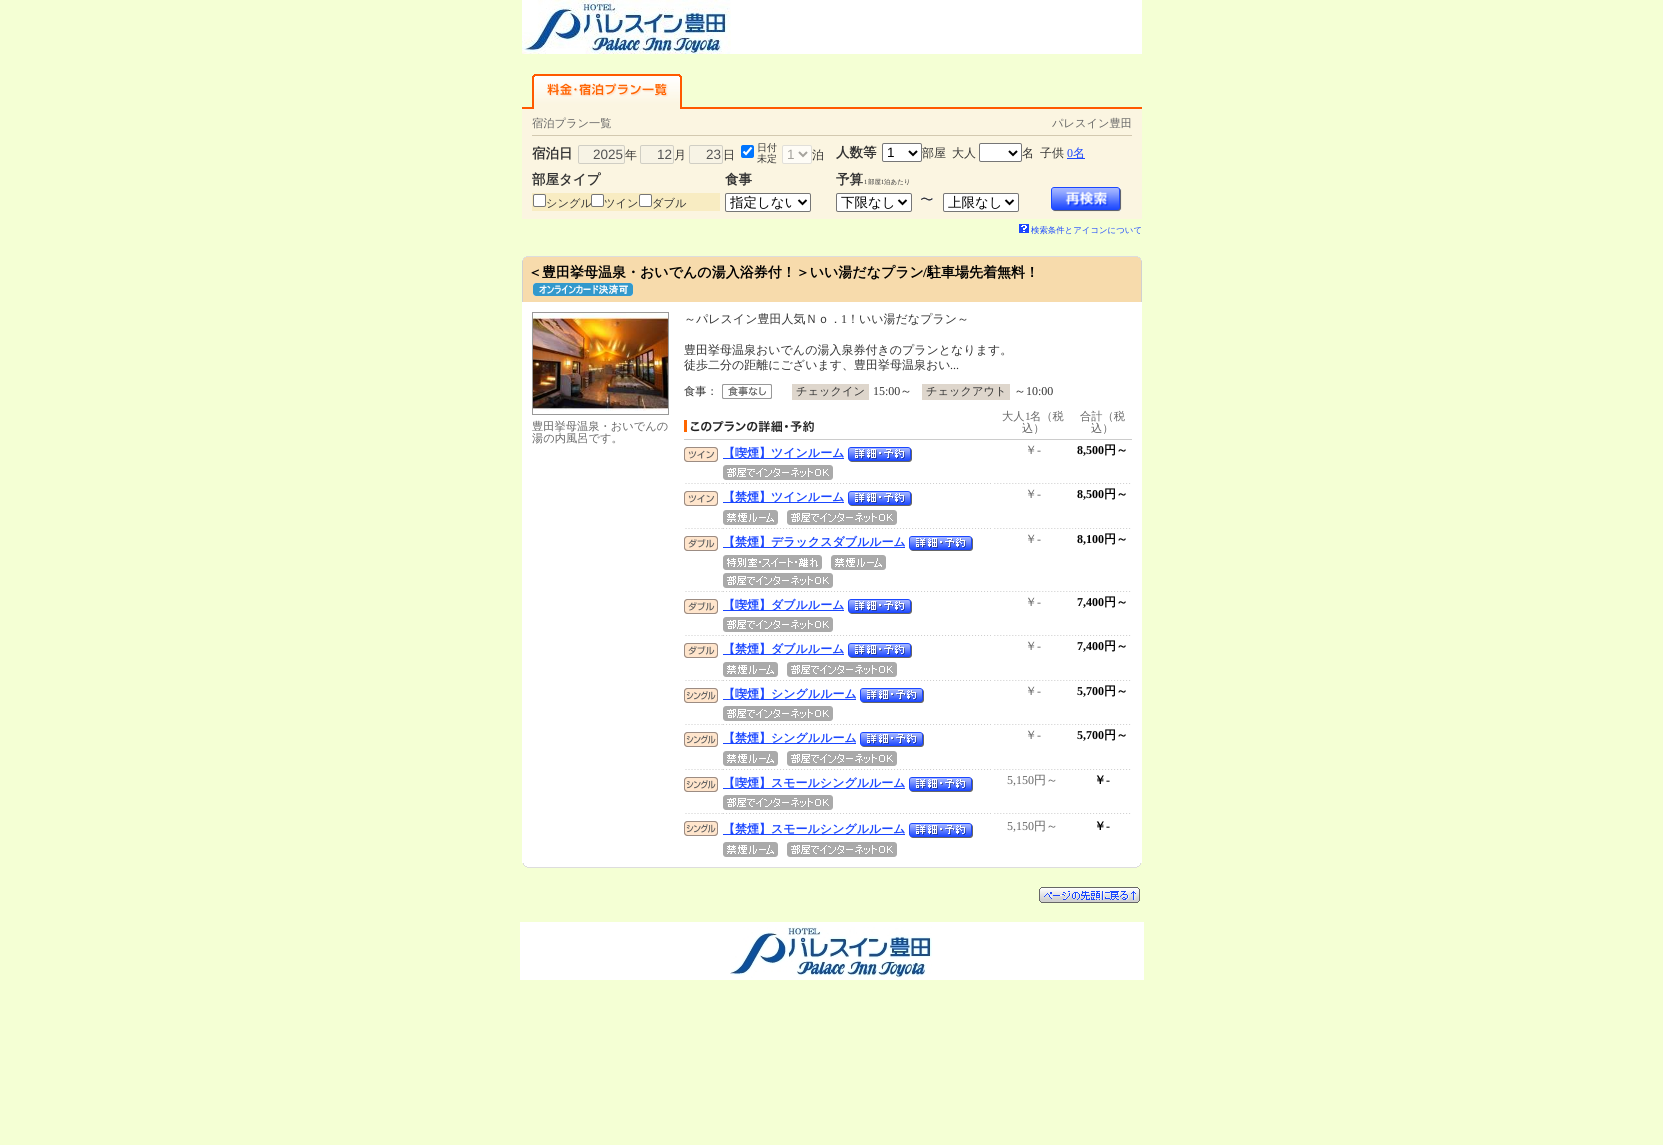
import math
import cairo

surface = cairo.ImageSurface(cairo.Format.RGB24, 1663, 1145)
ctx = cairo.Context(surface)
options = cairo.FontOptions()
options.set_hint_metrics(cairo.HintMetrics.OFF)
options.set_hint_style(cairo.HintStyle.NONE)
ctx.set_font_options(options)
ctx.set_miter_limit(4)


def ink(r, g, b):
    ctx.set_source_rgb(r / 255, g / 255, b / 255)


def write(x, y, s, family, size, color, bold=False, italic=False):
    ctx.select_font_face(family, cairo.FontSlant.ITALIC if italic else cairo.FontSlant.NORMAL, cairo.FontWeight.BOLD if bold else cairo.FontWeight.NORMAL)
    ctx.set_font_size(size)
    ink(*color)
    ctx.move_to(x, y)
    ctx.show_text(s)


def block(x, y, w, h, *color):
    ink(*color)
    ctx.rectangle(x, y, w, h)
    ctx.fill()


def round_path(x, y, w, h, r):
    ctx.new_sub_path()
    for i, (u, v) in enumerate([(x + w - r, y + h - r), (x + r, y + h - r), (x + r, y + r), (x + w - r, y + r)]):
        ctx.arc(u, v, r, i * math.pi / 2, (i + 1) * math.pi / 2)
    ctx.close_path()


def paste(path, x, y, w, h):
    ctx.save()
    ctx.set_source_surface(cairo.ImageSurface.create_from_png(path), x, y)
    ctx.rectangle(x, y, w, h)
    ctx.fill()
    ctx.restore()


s1 = dict(family="WenQuanYi Zen Hei Medium", size=11.25, color=(102, 102, 102))
s2 = dict(family="WenQuanYi Zen Hei", size=13.5, color=(51, 51, 51), bold=True)
s3 = dict(family="Liberation Sans", size=13.5, color=(84, 84, 84))
s4 = dict(family="WenQuanYi Zen Hei Medium", size=12, color=(51, 51, 51))
s5 = dict(family="WenQuanYi Zen Hei Medium", size=10, color=(51, 51, 51))
s6 = dict(family="Liberation Sans", size=13.5, color=(165, 163, 157))
s7 = dict(family="Liberation Sans", size=13.5, color=(0, 0, 0))
s8 = dict(family="Liberation Serif", size=12, color=(27, 71, 255))
s9 = dict(family="WenQuanYi Zen Hei Medium", size=12, color=(27, 71, 255))
s10 = dict(family="WenQuanYi Zen Hei Medium", size=11.25, color=(51, 51, 51))
s11 = dict(family="WenQuanYi Zen Hei Medium", size=13.5, color=(0, 0, 0))
s12 = dict(family="Liberation Serif", size=6.5, color=(51, 51, 51))
s13 = dict(family="WenQuanYi Zen Hei Medium", size=6.5, color=(51, 51, 51))
s14 = dict(family="WenQuanYi Zen Hei Medium", size=8.4, color=(27, 71, 255))
s15 = dict(family="WenQuanYi Zen Hei", size=14, color=(0, 0, 0), bold=True)
s16 = dict(family="Liberation Serif", size=14, color=(0, 0, 0), bold=True)
s17 = dict(family="Liberation Serif", size=12, color=(51, 51, 51))
s18 = dict(family="Liberation Serif", size=11.25, color=(102, 102, 102))
s19 = dict(family="WenQuanYi Zen Hei", size=12, color=(27, 71, 255), bold=True)
s20 = dict(family="WenQuanYi Zen Hei Medium", size=12, color=(102, 102, 102))
s21 = dict(family="Liberation Serif", size=12, color=(102, 102, 102))
s22 = dict(family="Liberation Serif", size=12, color=(0, 0, 0), bold=True)
s23 = dict(family="WenQuanYi Zen Hei", size=12, color=(0, 0, 0), bold=True)

ink(244, 255, 212)
ctx.paint()
block(731, 0, 411, 54, 255, 255, 255)
paste("pic1.png", 522, 0, 209, 54)
block(522, 107, 620, 2, 255, 90, 0)
paste("pic2.png", 532, 74, 150, 35)
block(522, 109, 620, 110, 251, 245, 225)
block(532, 135, 600, 1, 211, 201, 176)
write(532, 127, "宿泊プラン一覧", **s1)
write(1052, 127, "パレスイン豊田", **s1)
write(532, 158, "宿泊日", **s2)
ink(247, 243, 229)
round_path(578.5, 145.5, 46, 18, 1.5)
ctx.fill_preserve()
ink(208, 206, 196)
ctx.set_line_width(1)
ctx.stroke()
write(593, 159, "2025", **s3)
write(625, 159, "年", **s4)
ink(247, 243, 229)
round_path(640.5, 145.5, 33, 18, 1.5)
ctx.fill_preserve()
ink(208, 206, 196)
ctx.stroke()
write(657, 159, "12", **s3)
write(674, 159, "月", **s4)
ink(247, 243, 229)
round_path(689.5, 145.5, 33, 18, 1.5)
ctx.fill_preserve()
ink(208, 206, 196)
ctx.stroke()
write(706, 159, "23", **s3)
write(723, 159, "日", **s4)
ink(0, 117, 255)
round_path(741, 145, 13, 13, 2)
ctx.fill()
ctx.new_path()
ctx.move_to(743.5, 151.5)
ctx.line_to(746, 154)
ctx.line_to(751.5, 147.5)
ink(255, 255, 255)
ctx.set_line_width(2.1)
ctx.stroke()
write(757, 151, "日付", **s5)
write(757, 162, "未定", **s5)
ink(254, 252, 246)
round_path(782.5, 145.5, 29, 18, 1.5)
ctx.fill_preserve()
ink(225, 223, 217)
ctx.set_line_width(1)
ctx.stroke()
ctx.new_path()
ctx.move_to(799, 152)
ctx.line_to(803, 156)
ctx.line_to(807, 152)
ink(165, 163, 157)
ctx.set_line_width(2)
ctx.stroke()
write(787, 159, "1", **s6)
write(812, 159, "泊", **s4)
write(836, 157, "人数等", **s2)
ink(255, 255, 255)
round_path(882.5, 143.5, 39, 18, 1.5)
ctx.fill_preserve()
ink(118, 118, 118)
ctx.set_line_width(1)
ctx.stroke()
ctx.new_path()
ctx.move_to(909, 151)
ctx.line_to(913, 155)
ctx.line_to(917, 151)
ink(0, 0, 0)
ctx.set_line_width(2)
ctx.stroke()
write(887, 157, "1", **s7)
write(922, 157, "部屋", **s4)
write(952, 157, "大人", **s4)
ink(255, 255, 255)
round_path(979.5, 143.5, 42, 18, 1.5)
ctx.fill_preserve()
ink(118, 118, 118)
ctx.set_line_width(1)
ctx.stroke()
ctx.new_path()
ctx.move_to(1009, 151)
ctx.line_to(1013, 155)
ctx.line_to(1017, 151)
ink(0, 0, 0)
ctx.set_line_width(2)
ctx.stroke()
write(1022, 157, "名", **s4)
write(1040, 157, "子供", **s4)
write(1067, 157, "0", **s8)
block(1067, 158, 18, 1, 27, 71, 255)
write(1073, 157, "名", **s9)
write(532, 184, "部屋タイプ", **s2)
block(532, 193, 188, 18, 248, 236, 194)
ink(255, 255, 255)
round_path(533.5, 194.5, 12, 12, 1.5)
ctx.fill_preserve()
ink(118, 118, 118)
ctx.set_line_width(1)
ctx.stroke()
write(546, 207, "シングル", **s10)
ink(255, 255, 255)
round_path(591.5, 194.5, 12, 12, 1.5)
ctx.fill_preserve()
ink(118, 118, 118)
ctx.stroke()
write(604, 207, "ツイン", **s10)
ink(255, 255, 255)
round_path(639.5, 194.5, 12, 12, 1.5)
ctx.fill_preserve()
ink(118, 118, 118)
ctx.stroke()
write(652, 207, "ダブル", **s10)
write(725, 184, "食事", **s2)
ink(255, 255, 255)
round_path(725.5, 193.5, 85, 18, 1.5)
ctx.fill_preserve()
ink(118, 118, 118)
ctx.stroke()
ctx.new_path()
ctx.move_to(798.5, 200)
ctx.line_to(802.5, 204)
ctx.line_to(806.5, 200)
ink(0, 0, 0)
ctx.set_line_width(2)
ctx.stroke()
ctx.save()
ctx.rectangle(730, 194, 64, 17)
ctx.clip()
write(730, 207, "指定しない", **s11)
ctx.restore()
write(836, 184, "予算", **s2)
write(864, 184, "1", **s12)
write(868, 184, "部屋", **s13)
write(881, 184, "1", **s12)
write(884, 184, "泊あたり", **s13)
ink(255, 255, 255)
round_path(836.5, 193.5, 75, 18, 1.5)
ctx.fill_preserve()
ink(118, 118, 118)
ctx.set_line_width(1)
ctx.stroke()
ctx.new_path()
ctx.move_to(898.5, 200)
ctx.line_to(902.5, 204)
ctx.line_to(906.5, 200)
ink(0, 0, 0)
ctx.set_line_width(2)
ctx.stroke()
write(841, 207, "下限なし", **s11)
paste("pic3.png", 921, 197, 12, 4)
ink(255, 255, 255)
round_path(943.5, 193.5, 75, 18, 1.5)
ctx.fill_preserve()
ink(118, 118, 118)
ctx.set_line_width(1)
ctx.stroke()
ctx.new_path()
ctx.move_to(1005.5, 200)
ctx.line_to(1009.5, 204)
ctx.line_to(1013.5, 200)
ink(0, 0, 0)
ctx.set_line_width(2)
ctx.stroke()
write(948, 207, "上限なし", **s11)
paste("pic4.png", 1051, 187, 71, 25)
paste("pic5.png", 1019, 224, 10, 9)
write(1031, 233, "検索条件とアイコンについて", **s14)
paste("pic6.png", 522, 256, 620, 5)
block(523, 261, 618, 41, 247, 219, 172)
block(1141, 261, 1, 41, 208, 208, 208)
block(522, 261, 1, 41, 208, 208, 208)
write(528, 277, "＜豊田挙母温泉・おいでんの湯入浴券付！＞いい湯だなプラン", **s15)
write(923, 277, "/", **s16)
write(927, 277, "駐車場先着無料！", **s15)
paste("pic7.png", 533, 283, 100, 13)
block(522, 302, 620, 561, 255, 255, 255)
ctx.rectangle(532.5, 312.5, 136, 102)
ink(153, 153, 153)
ctx.set_line_width(1)
ctx.stroke()
paste("pic8.png", 533, 313, 135, 98)
write(532, 430, "豊田挙母温泉・おいでんの", **s1)
write(532, 442, "湯の内風呂です。", **s1)
write(684, 323, "～パレスイン豊田人気Ｎｏ．", **s4)
write(841, 323, "1", **s17)
write(847, 323, "！いい湯だなプラン～", **s4)
write(684, 354, "豊田挙母温泉おいでんの湯入泉券付きのプランとなります。", **s4)
write(684, 369, "徒歩二分の距離にございます、豊田挙母温泉おい", **s4)
write(950, 369, "...", **s17)
write(684, 395, "食事：", **s10)
paste("pic9.png", 722, 384, 50, 15)
block(792, 384, 77, 16, 222, 214, 204)
write(796, 395, "チェックイン", **s10)
write(873, 395, "15:00", **s17)
write(900, 395, "～", **s4)
block(922, 384, 88, 16, 222, 214, 204)
write(926, 395, "チェックアウト", **s10)
write(1014, 395, "～", **s4)
write(1026, 395, "10:00", **s17)
write(1002, 420, "大人", **s1)
write(1025, 420, "1", **s18)
write(1030, 420, "名（税", **s1)
write(1022, 432, "込）", **s1)
write(1080, 420, "合計（税", **s1)
write(1091, 432, "込）", **s1)
block(684, 439, 448, 1, 204, 204, 204)
paste("pic10.png", 684, 420, 130, 12)
paste("pic11.png", 685, 483, 38, 1)
paste("pic12.png", 684, 447, 34, 15)
paste("pic13.png", 723, 483, 268, 1)
block(723, 458, 121, 1, 27, 71, 255)
write(723, 457, "【喫煙】ツインルーム", **s19)
paste("pic14.png", 848, 447, 64, 15)
paste("pic15.png", 723, 465, 110, 15)
paste("pic16.png", 994, 483, 79, 1)
write(1025, 454, "￥", **s20)
write(1037, 454, "-", **s21)
paste("pic17.png", 1073, 483, 58, 1)
write(1077, 454, "8,500", **s22)
write(1104, 454, "円～", **s23)
paste("pic11.png", 685, 528, 38, 1)
paste("pic12.png", 684, 491, 34, 15)
paste("pic13.png", 723, 528, 268, 1)
block(723, 502, 121, 1, 27, 71, 255)
write(723, 501, "【禁煙】ツインルーム", **s19)
paste("pic14.png", 848, 491, 64, 15)
paste("pic18.png", 723, 510, 55, 15)
paste("pic15.png", 787, 510, 110, 15)
paste("pic16.png", 994, 528, 79, 1)
write(1025, 498, "￥", **s20)
write(1037, 498, "-", **s21)
paste("pic17.png", 1073, 528, 58, 1)
write(1077, 498, "8,500", **s22)
write(1104, 498, "円～", **s23)
paste("pic11.png", 685, 591, 38, 1)
paste("pic19.png", 684, 536, 34, 15)
paste("pic13.png", 723, 591, 268, 1)
block(723, 547, 182, 1, 27, 71, 255)
write(723, 546, "【禁煙】デラックスダブルルーム", **s19)
paste("pic14.png", 909, 536, 64, 15)
paste("pic20.png", 723, 555, 99, 15)
paste("pic18.png", 831, 555, 55, 15)
paste("pic15.png", 723, 573, 110, 15)
paste("pic16.png", 994, 591, 79, 1)
write(1025, 543, "￥", **s20)
write(1037, 543, "-", **s21)
paste("pic17.png", 1073, 591, 58, 1)
write(1077, 543, "8,100", **s22)
write(1104, 543, "円～", **s23)
paste("pic11.png", 685, 635, 38, 1)
paste("pic19.png", 684, 599, 34, 15)
paste("pic13.png", 723, 635, 268, 1)
block(723, 610, 121, 1, 27, 71, 255)
write(723, 609, "【喫煙】ダブルルーム", **s19)
paste("pic14.png", 848, 599, 64, 15)
paste("pic15.png", 723, 617, 110, 15)
paste("pic16.png", 994, 635, 79, 1)
write(1025, 606, "￥", **s20)
write(1037, 606, "-", **s21)
paste("pic17.png", 1073, 635, 58, 1)
write(1077, 606, "7,400", **s22)
write(1104, 606, "円～", **s23)
paste("pic11.png", 685, 680, 38, 1)
paste("pic19.png", 684, 643, 34, 15)
paste("pic13.png", 723, 680, 268, 1)
block(723, 654, 121, 1, 27, 71, 255)
write(723, 653, "【禁煙】ダブルルーム", **s19)
paste("pic14.png", 848, 643, 64, 15)
paste("pic18.png", 723, 662, 55, 15)
paste("pic15.png", 787, 662, 110, 15)
paste("pic16.png", 994, 680, 79, 1)
write(1025, 650, "￥", **s20)
write(1037, 650, "-", **s21)
paste("pic17.png", 1073, 680, 58, 1)
write(1077, 650, "7,400", **s22)
write(1104, 650, "円～", **s23)
paste("pic11.png", 685, 724, 38, 1)
paste("pic21.png", 684, 688, 34, 15)
paste("pic13.png", 723, 724, 268, 1)
block(723, 699, 133, 1, 27, 71, 255)
write(723, 698, "【喫煙】シングルルーム", **s19)
paste("pic14.png", 860, 688, 64, 15)
paste("pic15.png", 723, 706, 110, 15)
paste("pic16.png", 994, 724, 79, 1)
write(1025, 695, "￥", **s20)
write(1037, 695, "-", **s21)
paste("pic17.png", 1073, 724, 58, 1)
write(1077, 695, "5,700", **s22)
write(1104, 695, "円～", **s23)
paste("pic11.png", 685, 769, 38, 1)
paste("pic21.png", 684, 732, 34, 15)
paste("pic13.png", 723, 769, 268, 1)
block(723, 743, 133, 1, 27, 71, 255)
write(723, 742, "【禁煙】シングルルーム", **s19)
paste("pic14.png", 860, 732, 64, 15)
paste("pic18.png", 723, 751, 55, 15)
paste("pic15.png", 787, 751, 110, 15)
paste("pic16.png", 994, 769, 79, 1)
write(1025, 739, "￥", **s20)
write(1037, 739, "-", **s21)
paste("pic17.png", 1073, 769, 58, 1)
write(1077, 739, "5,700", **s22)
write(1104, 739, "円～", **s23)
paste("pic11.png", 685, 813, 38, 1)
paste("pic21.png", 684, 777, 34, 15)
paste("pic13.png", 723, 813, 268, 1)
block(723, 788, 182, 1, 27, 71, 255)
write(723, 787, "【喫煙】スモールシングルルーム", **s19)
paste("pic14.png", 909, 777, 64, 15)
paste("pic15.png", 723, 795, 110, 15)
paste("pic16.png", 994, 813, 79, 1)
write(1007, 784, "5,150", **s21)
write(1034, 784, "円～", **s20)
paste("pic17.png", 1073, 813, 58, 1)
write(1094, 784, "￥", **s23)
write(1106, 784, "-", **s22)
paste("pic21.png", 684, 821, 34, 15)
block(723, 834, 182, 1, 27, 71, 255)
write(723, 833, "【禁煙】スモールシングルルーム", **s19)
paste("pic14.png", 909, 823, 64, 15)
paste("pic18.png", 723, 842, 55, 15)
paste("pic15.png", 787, 842, 110, 15)
write(1007, 830, "5,150", **s21)
write(1034, 830, "円～", **s20)
write(1094, 830, "￥", **s23)
write(1106, 830, "-", **s22)
paste("pic22.png", 523, 863, 618, 5)
paste("pic23.png", 1039, 887, 101, 16)
block(520, 922, 624, 58, 255, 255, 255)
paste("pic24.png", 730, 927, 202, 51)
surface.write_to_png("screenshot.png")
